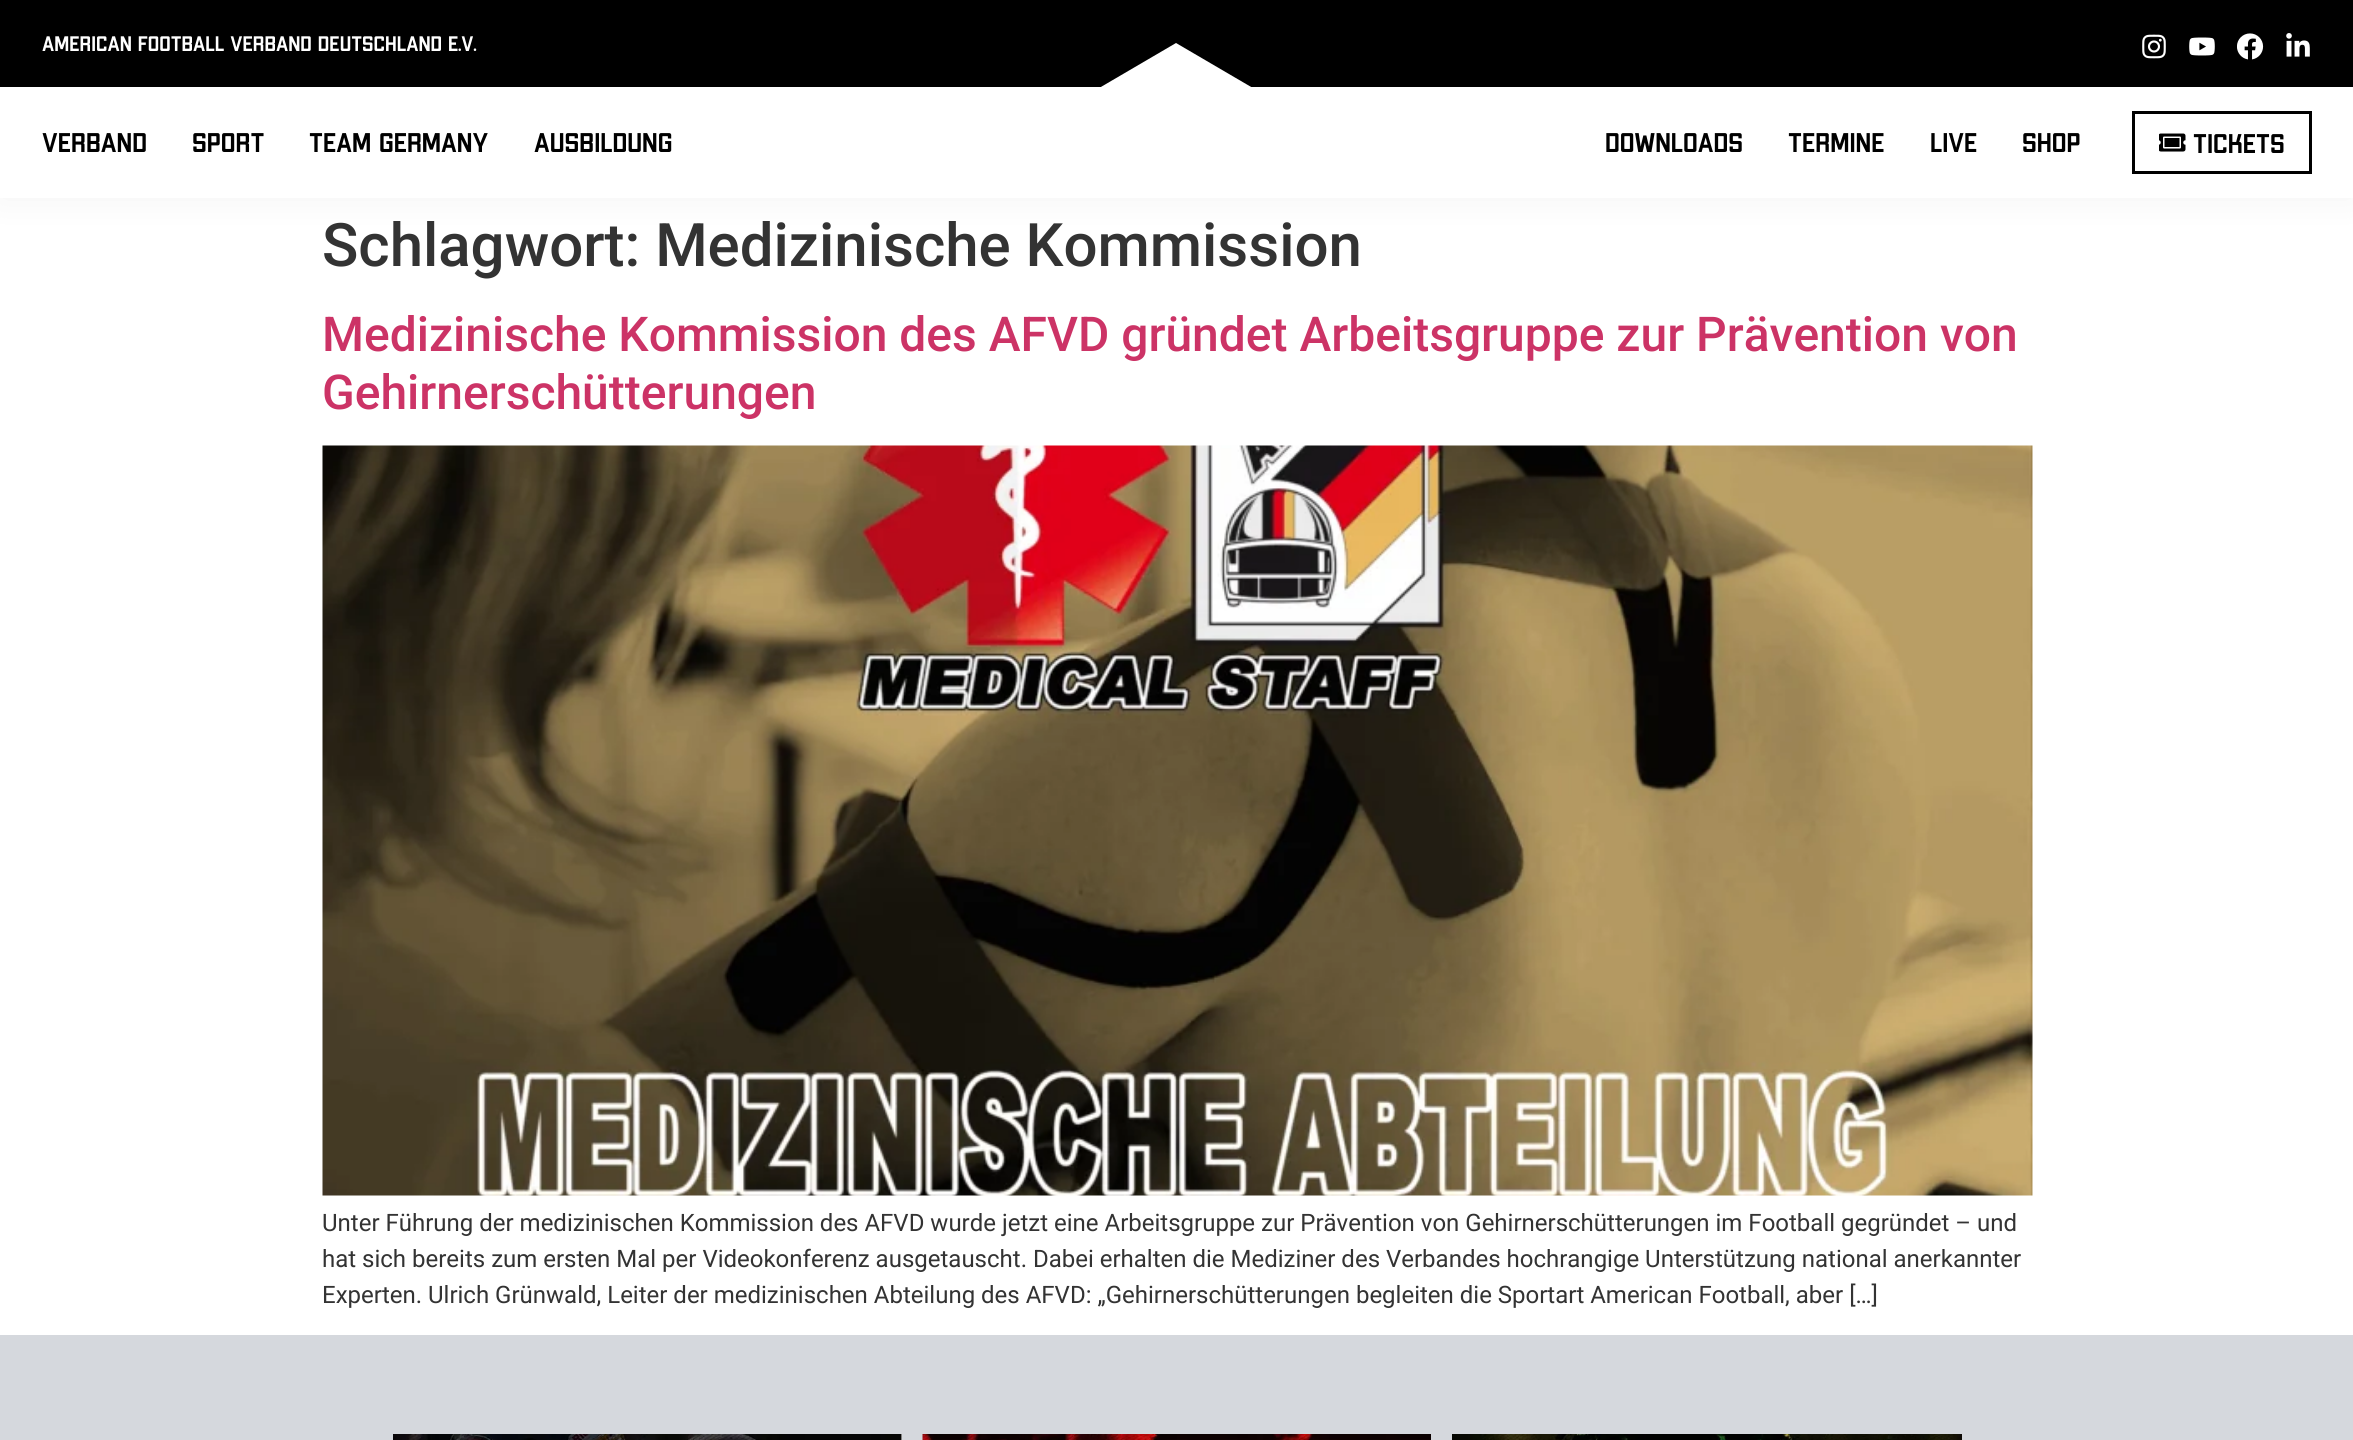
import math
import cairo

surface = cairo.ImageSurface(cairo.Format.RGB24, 2353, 1440)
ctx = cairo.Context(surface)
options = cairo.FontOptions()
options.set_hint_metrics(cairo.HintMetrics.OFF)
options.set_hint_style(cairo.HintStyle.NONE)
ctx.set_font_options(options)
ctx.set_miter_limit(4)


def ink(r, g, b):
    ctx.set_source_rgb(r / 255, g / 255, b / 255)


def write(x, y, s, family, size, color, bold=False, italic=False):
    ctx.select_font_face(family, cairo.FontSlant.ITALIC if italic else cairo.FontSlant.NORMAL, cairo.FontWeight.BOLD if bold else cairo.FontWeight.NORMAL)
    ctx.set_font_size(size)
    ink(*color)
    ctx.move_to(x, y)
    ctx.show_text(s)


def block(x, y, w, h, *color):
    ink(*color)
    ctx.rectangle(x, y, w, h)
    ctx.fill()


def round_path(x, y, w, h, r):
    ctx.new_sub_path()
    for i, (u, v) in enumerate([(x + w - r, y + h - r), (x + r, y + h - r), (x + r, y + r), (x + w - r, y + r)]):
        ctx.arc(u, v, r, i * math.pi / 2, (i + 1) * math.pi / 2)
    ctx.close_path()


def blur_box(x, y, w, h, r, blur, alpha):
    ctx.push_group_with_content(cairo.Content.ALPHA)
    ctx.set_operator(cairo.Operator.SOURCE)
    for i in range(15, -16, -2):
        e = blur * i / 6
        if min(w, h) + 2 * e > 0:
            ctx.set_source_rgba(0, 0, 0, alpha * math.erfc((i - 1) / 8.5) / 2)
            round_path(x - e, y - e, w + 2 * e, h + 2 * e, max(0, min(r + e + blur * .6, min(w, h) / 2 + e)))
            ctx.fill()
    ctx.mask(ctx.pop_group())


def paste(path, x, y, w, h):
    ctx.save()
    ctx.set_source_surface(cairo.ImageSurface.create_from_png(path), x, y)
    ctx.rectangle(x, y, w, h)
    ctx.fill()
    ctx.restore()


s1 = dict(family="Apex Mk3 Medium", size=21, color=(255, 255, 255))
s2 = dict(family="Apex Mk3 Medium", size=27, color=(0, 0, 0))
s3 = dict(family="Roboto Medium", size=60, color=(51, 51, 51))
s4 = dict(family="Roboto Medium", size=48, color=(204, 51, 102))
s5 = dict(family="Roboto", size=24, color=(51, 51, 51))

ink(255, 255, 255)
ctx.paint()
ink(0, 0, 0)
blur_box(0, 0, 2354, 198, 0, 18, 0.05)
block(0, 0, 2353, 87, 0, 0, 0)
write(42, 51, "American Football Verband Deutschland e.V.", **s1)
ctx.new_path()
ctx.move_to(1176, 43)
ctx.line_to(1258, 91)
ctx.line_to(1258, 94)
ctx.line_to(1094, 94)
ctx.line_to(1094, 91)
ctx.close_path()
ctx.fill()
paste("pic1.png", 2142, 34, 24, 25)
paste("pic2.png", 2189, 37, 26, 19)
paste("pic3.png", 2237, 33, 27, 27)
paste("pic4.png", 2286, 33, 24, 24)
block(0, 87, 2353, 111, 255, 255, 255)
write(42, 152, "Verband", **s2)
write(192, 152, "Sport", **s2)
write(309, 152, "Team Germany", **s2)
write(534, 152, "Ausbildung", **s2)
write(1605, 152, "Downloads", **s2)
write(1788, 152, "Termine", **s2)
write(1930, 152, "Live", **s2)
write(2022, 152, "Shop", **s2)
ctx.rectangle(2133.5, 112.5, 177, 60)
ctx.set_line_width(3)
ctx.stroke()
paste("pic5.png", 2159, 133, 27, 19)
write(2193, 153, "Tickets", **s2)
write(322, 266, "Schlagwort: Medizinische Kommission", **s3)
write(322, 351, "Medizinische Kommission des AFVD gründet Arbeitsgruppe zur Prävention von", **s4)
write(322, 409, "Gehirnerschütterungen", **s4)
paste("pic6.png", 322, 445, 1711, 751)
write(322, 1231, "Unter Führung der medizinischen Kommission des AFVD wurde jetzt eine Arbeitsgruppe zur Prävention von Gehirnerschütterungen im Football gegründet – und", **s5)
write(322, 1267, "hat sich bereits zum ersten Mal per Videokonferenz ausgetauscht. Dabei erhalten die Mediziner des Verbandes hochrangige Unterstützung national anerkannter", **s5)
write(322, 1303, "Experten. Ulrich Grünwald, Leiter der medizinischen Abteilung des AFVD: „Gehirnerschütterungen begleiten die Sportart American Football, aber […]", **s5)
block(0, 1335, 2353, 105, 213, 216, 221)
block(901, 1434, 1, 6, 255, 255, 255)
paste("pic7.png", 393, 1434, 509, 6)
paste("pic8.png", 922, 1434, 509, 6)
paste("pic9.png", 1452, 1434, 510, 6)
surface.write_to_png("screenshot.png")
